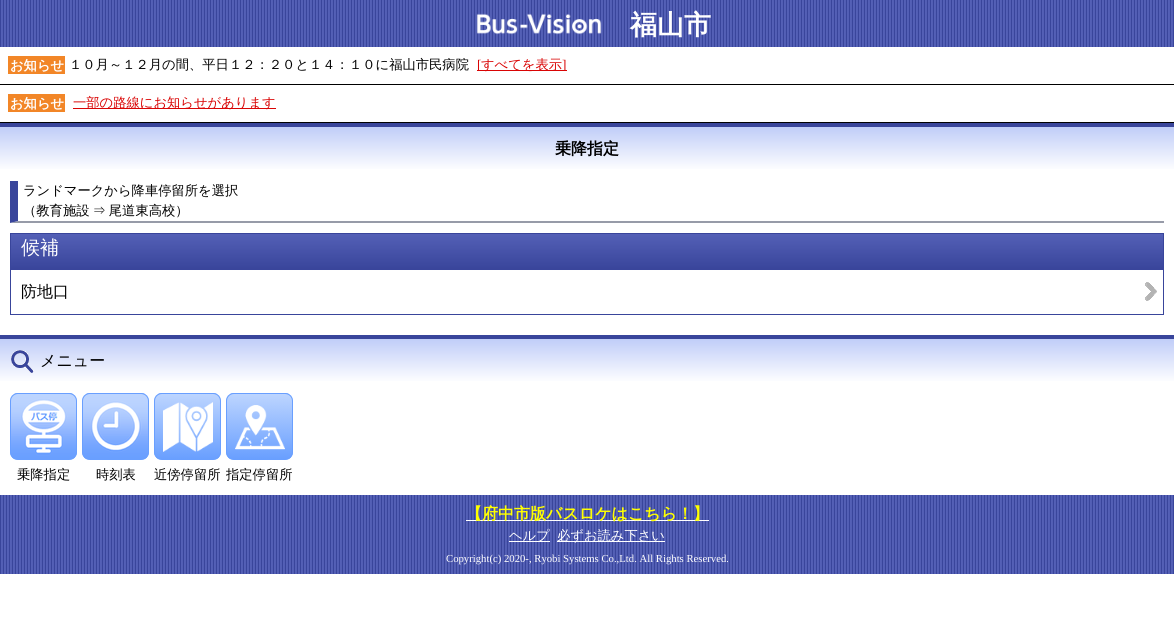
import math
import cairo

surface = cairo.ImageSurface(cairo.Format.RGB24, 1174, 630)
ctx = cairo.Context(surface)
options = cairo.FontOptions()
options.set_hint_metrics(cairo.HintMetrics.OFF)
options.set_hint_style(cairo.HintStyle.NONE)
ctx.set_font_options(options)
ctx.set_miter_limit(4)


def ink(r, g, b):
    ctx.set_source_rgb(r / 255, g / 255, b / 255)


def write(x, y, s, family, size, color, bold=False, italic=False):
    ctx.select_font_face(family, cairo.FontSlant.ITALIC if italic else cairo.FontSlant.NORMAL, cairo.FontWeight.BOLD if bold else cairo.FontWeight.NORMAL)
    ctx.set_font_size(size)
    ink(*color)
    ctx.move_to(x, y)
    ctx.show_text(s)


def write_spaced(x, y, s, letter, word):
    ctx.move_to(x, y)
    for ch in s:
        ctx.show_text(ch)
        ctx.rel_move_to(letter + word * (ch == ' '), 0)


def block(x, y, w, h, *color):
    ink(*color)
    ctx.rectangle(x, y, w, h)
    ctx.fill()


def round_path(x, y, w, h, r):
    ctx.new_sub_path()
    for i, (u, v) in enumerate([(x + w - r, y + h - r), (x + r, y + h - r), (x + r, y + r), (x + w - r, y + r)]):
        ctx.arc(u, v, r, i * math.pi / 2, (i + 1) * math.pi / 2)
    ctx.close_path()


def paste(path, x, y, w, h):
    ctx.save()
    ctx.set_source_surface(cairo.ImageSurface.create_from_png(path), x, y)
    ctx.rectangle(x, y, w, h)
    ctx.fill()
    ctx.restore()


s1 = dict(family="WenQuanYi Zen Hei", size=27, color=(255, 255, 255), bold=True)
s2 = dict(family="WenQuanYi Zen Hei", size=13.3, color=(255, 255, 255), bold=True)
s3 = dict(family="WenQuanYi Zen Hei Medium", size=13.3, color=(0, 0, 0))
s4 = dict(family="Liberation Serif", size=13.3, color=(217, 4, 4))
s5 = dict(family="WenQuanYi Zen Hei Medium", size=13.3, color=(217, 4, 4))
s6 = dict(family="WenQuanYi Zen Hei", size=16, color=(0, 0, 0), bold=True)
s7 = dict(family="WenQuanYi Zen Hei Medium", size=19, color=(255, 255, 255))
s8 = dict(family="WenQuanYi Zen Hei Medium", size=16, color=(0, 0, 0))
s9 = dict(family="WenQuanYi Zen Hei", size=16, color=(255, 255, 0), bold=True)
s10 = dict(family="WenQuanYi Zen Hei Medium", size=13.3, color=(255, 255, 255))
s11 = dict(family="Liberation Serif", size=10.7, color=(255, 255, 255))

ink(255, 255, 255)
ctx.paint()
paste("pic1.png", 0, 0, 1174, 47)
paste("pic2.png", 476, 13, 126, 22)
write(630, 34, "福山市", **s1)
block(0, 84, 1174, 1, 0, 0, 0)
block(8, 56, 57, 18, 242, 134, 39)
write(10, 70, "お知らせ", **s2)
write(69, 69, "１０月～１２月の間、平日１２：２０と１４：１０に福山市民病院", **s3)
block(477, 70, 90, 1, 217, 4, 4)
write(477, 69, "[", **s4)
write(481, 69, "すべてを表示", **s5)
write(562, 69, "]", **s4)
block(0, 122, 1174, 1, 0, 0, 0)
block(8, 94, 57, 18, 242, 134, 39)
write(10, 108, "お知らせ", **s2)
block(73, 108, 203, 1, 217, 4, 4)
write(73, 107, "一部の路線にお知らせがあります", **s5)
gradient = cairo.LinearGradient(0, 127, 0, 171)
gradient.add_color_stop_rgba(0, 0.753, 0.804, 0.973, 1)
gradient.add_color_stop_rgba(1, 1, 1, 1, 1)
ctx.set_source(gradient)
ctx.rectangle(0, 127, 1174, 42)
ctx.fill()
block(0, 123, 1174, 4, 57, 69, 155)
write(555, 154, "乗降指定", **s6)
ink(151, 155, 168)
ctx.new_path()
ctx.move_to(1164, 223)
ctx.line_to(10, 223)
ctx.line_to(18, 221)
ctx.line_to(1164, 221)
ctx.close_path()
ctx.fill()
ink(57, 69, 155)
ctx.new_path()
ctx.move_to(10, 223)
ctx.line_to(10, 181)
ctx.line_to(18, 181)
ctx.line_to(18, 221)
ctx.close_path()
ctx.fill()
write(23, 195, "ランドマークから降車停留所を選択", **s3)
write_spaced(23, 215, "（教育施設 ⇒ 尾道東高校）", 0, -1)
gradient = cairo.LinearGradient(11, 234, 11, 269)
gradient.add_color_stop_rgba(0, 0.329, 0.376, 0.714, 1)
gradient.add_color_stop_rgba(1, 0.224, 0.271, 0.608, 1)
ctx.set_source(gradient)
ctx.rectangle(11, 234, 1152, 35)
ctx.fill()
ctx.rectangle(10.5, 233.5, 1153, 36)
ink(57, 69, 155)
ctx.set_line_width(1)
ctx.stroke()
write(21, 254, "候補", **s7)
paste("pic3.png", 1145, 282, 12, 19)
block(1163, 270, 1, 45, 57, 69, 155)
block(10, 314, 1154, 1, 57, 69, 155)
block(10, 270, 1, 45, 57, 69, 155)
write(21, 297, "防地口", **s8)
gradient = cairo.LinearGradient(0, 339, 0, 383)
gradient.add_color_stop_rgba(0, 0.753, 0.804, 0.973, 1)
gradient.add_color_stop_rgba(1, 1, 1, 1, 1)
ctx.set_source(gradient)
ctx.rectangle(0, 339, 1174, 42)
ctx.fill()
block(0, 335, 1174, 4, 57, 69, 155)
paste("pic4.png", 11, 350, 23, 23)
write(40, 366, "メニュー", **s8)
paste("pic5.png", 10, 393, 67, 67)
round_path(10.5, 393.5, 66, 66, 7.5)
ink(105, 159, 255)
ctx.stroke()
write(17, 479, "乗降指定", **s3)
paste("pic6.png", 82, 393, 67, 67)
round_path(82.5, 393.5, 66, 66, 7.5)
ink(105, 159, 255)
ctx.stroke()
write(96, 479, "時刻表", **s3)
paste("pic7.png", 154, 393, 67, 67)
round_path(154.5, 393.5, 66, 66, 7.5)
ink(105, 159, 255)
ctx.stroke()
write(154, 479, "近傍停留所", **s3)
paste("pic8.png", 226, 393, 67, 67)
round_path(226.5, 393.5, 66, 66, 7.5)
ink(105, 159, 255)
ctx.stroke()
write(226, 479, "指定停留所", **s3)
paste("pic9.png", 0, 495, 1174, 79)
block(466, 520, 243, 1, 255, 255, 255)
write(466, 519, "【府中市版バスロケはこちら！】", **s9)
block(509, 541, 41, 1, 255, 255, 255)
write(509, 540, "ヘルプ", **s10)
block(557, 541, 108, 1, 255, 255, 255)
write(557, 540, "必ずお読み下さい", **s10)
write(446, 562, "Copyright(c) 2020-, Ryobi Systems Co.,Ltd. All Rights Reserved.", **s11)
surface.write_to_png("screenshot.png")
